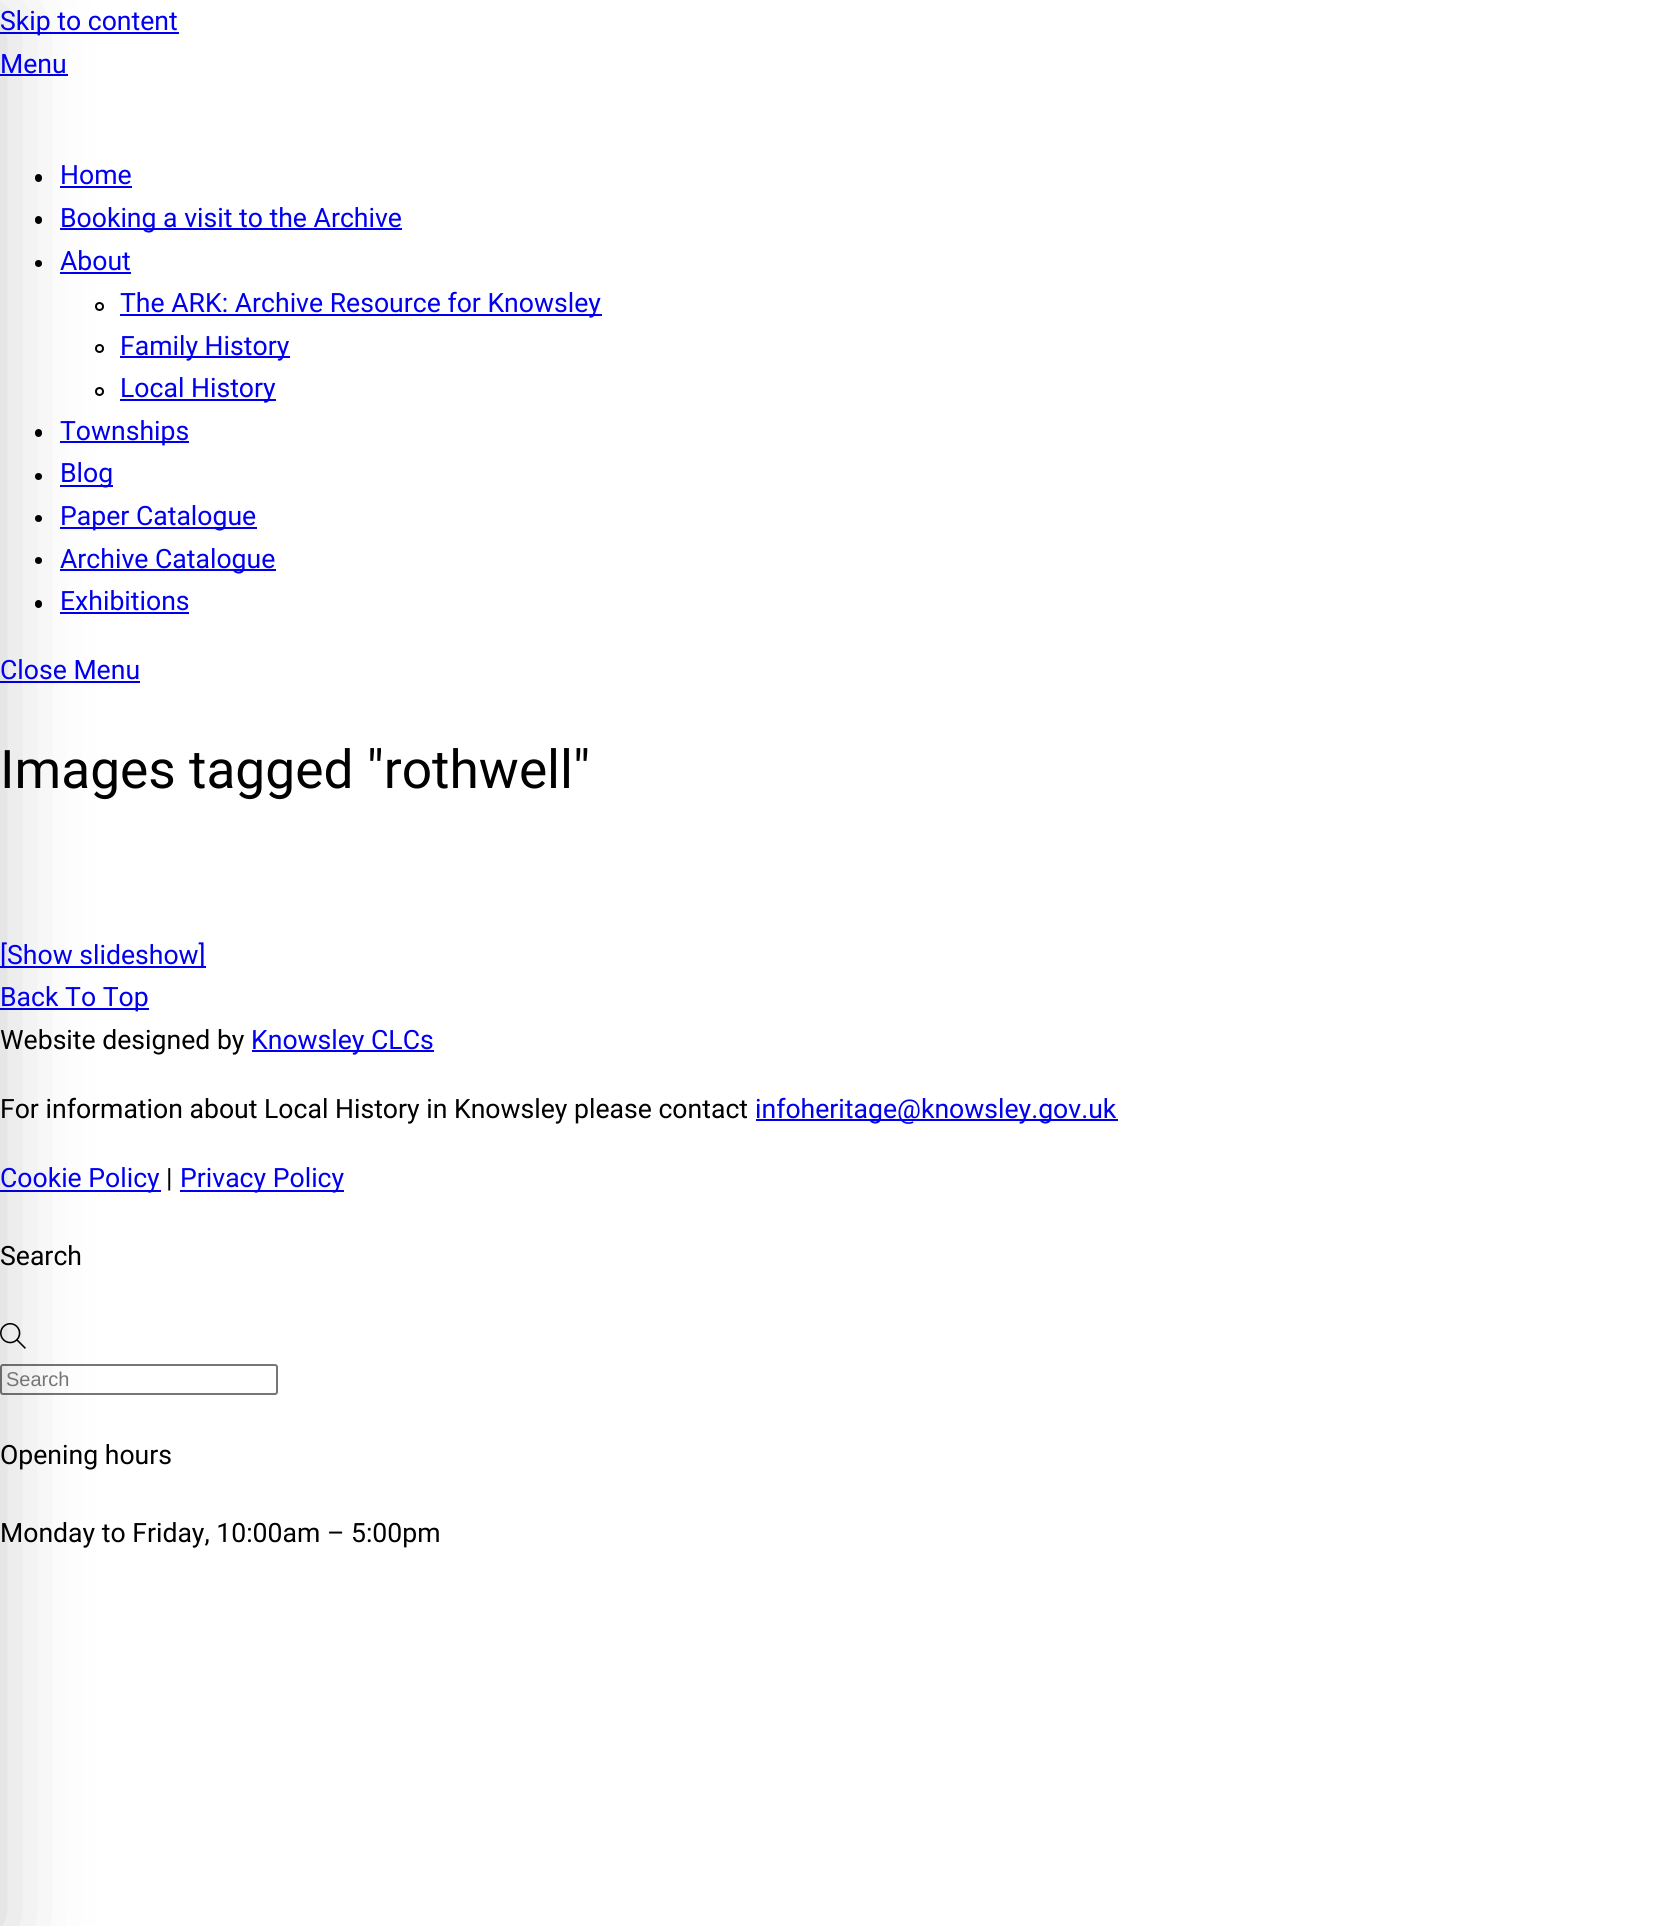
import math
import cairo

surface = cairo.ImageSurface(cairo.Format.RGB24, 1679, 1926)
ctx = cairo.Context(surface)
options = cairo.FontOptions()
options.set_hint_metrics(cairo.HintMetrics.OFF)
options.set_hint_style(cairo.HintStyle.NONE)
ctx.set_font_options(options)
ctx.set_miter_limit(4)


def ink(r, g, b):
    ctx.set_source_rgb(r / 255, g / 255, b / 255)


def write(x, y, s, family, size, color, bold=False, italic=False):
    ctx.select_font_face(family, cairo.FontSlant.ITALIC if italic else cairo.FontSlant.NORMAL, cairo.FontWeight.BOLD if bold else cairo.FontWeight.NORMAL)
    ctx.set_font_size(size)
    ink(*color)
    ctx.move_to(x, y)
    ctx.show_text(s)


def block(x, y, w, h, *color):
    ink(*color)
    ctx.rectangle(x, y, w, h)
    ctx.fill()


def round_path(x, y, w, h, r):
    ctx.new_sub_path()
    for i, (u, v) in enumerate([(x + w - r, y + h - r), (x + r, y + h - r), (x + r, y + r), (x + w - r, y + r)]):
        ctx.arc(u, v, r, i * math.pi / 2, (i + 1) * math.pi / 2)
    ctx.close_path()


def blur_box(x, y, w, h, r, blur, alpha):
    ctx.push_group_with_content(cairo.Content.ALPHA)
    ctx.set_operator(cairo.Operator.SOURCE)
    for i in range(15, -16, -2):
        e = blur * i / 6
        if min(w, h) + 2 * e > 0:
            ctx.set_source_rgba(0, 0, 0, alpha * math.erfc((i - 1) / 8.5) / 2)
            round_path(x - e, y - e, w + 2 * e, h + 2 * e, max(0, min(r + e + blur * .6, min(w, h) / 2 + e)))
            ctx.fill()
    ctx.mask(ctx.pop_group())


def paste(path, x, y, w, h):
    ctx.save()
    ctx.set_source_surface(cairo.ImageSurface.create_from_png(path), x, y)
    ctx.rectangle(x, y, w, h)
    ctx.fill()
    ctx.restore()


s1 = dict(family="Roboto", size=26.6, color=(0, 0, 238))
s2 = dict(family="Roboto", size=53.25, color=(0, 0, 0))
s3 = dict(family="Roboto", size=26.6, color=(0, 0, 0))
s4 = dict(family="Liberation Sans", size=20, color=(117, 117, 117))

ink(255, 255, 255)
ctx.paint()
block(0, 32, 179, 2, 0, 0, 238)
block(0, 74, 68, 2, 0, 0, 238)
ink(0, 0, 0)
round_path(35, 174, 7, 8, 3.5)
ctx.fill()
block(60, 186, 72, 2, 0, 0, 238)
ink(0, 0, 0)
round_path(35, 216, 7, 8, 3.5)
ctx.fill()
block(60, 228, 342, 2, 0, 0, 238)
ink(0, 0, 0)
ctx.arc(38.5, 263.5, 3.5, 0, 2 * math.pi)
ctx.fill()
block(60, 272, 71, 2, 0, 0, 238)
ctx.arc(99.5, 306.5, 3.5, 0, 2 * math.pi)
ink(0, 0, 0)
ctx.stroke()
block(120, 314, 482, 2, 0, 0, 238)
ctx.arc(99.5, 348.5, 3.5, 0, 2 * math.pi)
ink(0, 0, 0)
ctx.stroke()
block(120, 356, 170, 2, 0, 0, 238)
ctx.arc(99.5, 391.5, 3.5, 0, 2 * math.pi)
ink(0, 0, 0)
ctx.stroke()
block(120, 399, 156, 2, 0, 0, 238)
ink(0, 0, 0)
round_path(35, 429, 7, 8, 3.5)
ctx.fill()
block(60, 441, 129, 2, 0, 0, 238)
ink(0, 0, 0)
ctx.arc(38.5, 476.5, 3.5, 0, 2 * math.pi)
ctx.fill()
block(60, 485, 53, 2, 0, 0, 238)
ink(0, 0, 0)
ctx.arc(38.5, 518.5, 3.5, 0, 2 * math.pi)
ctx.fill()
block(60, 527, 197, 2, 0, 0, 238)
ink(0, 0, 0)
ctx.arc(38.5, 560.5, 3.5, 0, 2 * math.pi)
ctx.fill()
block(60, 569, 216, 2, 0, 0, 238)
ink(0, 0, 0)
round_path(35, 600, 7, 8, 3.5)
ctx.fill()
block(60, 612, 129, 2, 0, 0, 238)
block(0, 681, 140, 2, 0, 0, 238)
block(0, 966, 206, 2, 0, 0, 238)
block(0, 1008, 149, 2, 0, 0, 238)
block(0, 1190, 161, 2, 0, 0, 238)
paste("pic1.png", 0, 1323, 26, 26)
round_path(1, 1365, 276, 29, 2)
ink(118, 118, 118)
ctx.stroke()
ink(0, 0, 0)
blur_box(-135, 15, 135, 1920, 0, 45, 0.2)
write(0, 30, "Skip to content", **s1)
write(0, 73, "Menu", **s1)
write(60, 184, "Home", **s1)
write(60, 227, "Booking a visit to the Archive", **s1)
write(60, 270, "About", **s1)
write(120, 312, "The ARK: Archive Resource for Knowsley", **s1)
write(120, 355, "Family History", **s1)
write(120, 397, "Local History", **s1)
write(60, 440, "Townships", **s1)
write(60, 482, "Blog", **s1)
write(60, 525, "Paper Catalogue", **s1)
write(60, 568, "Archive Catalogue", **s1)
write(60, 610, "Exhibitions", **s1)
write(0, 679, "Close Menu", **s1)
write(0, 788, "Images tagged \"rothwell\"", **s2)
write(0, 964, "[Show slideshow]", **s1)
write(0, 1006, "Back To Top", **s1)
write(0, 1049, "Website designed by", **s3)
block(252, 1050, 182, 2, 0, 0, 238)
write(251, 1049, "Knowsley CLCs", **s1)
write(0, 1118, "For information about Local History in Knowsley please contact", **s3)
block(756, 1119, 362, 2, 0, 0, 238)
write(755, 1118, "infoheritage@knowsley.gov.uk", **s1)
write(0, 1187, "Cookie Policy", **s1)
write(166, 1187, "|", **s3)
block(180, 1190, 164, 2, 0, 0, 238)
write(180, 1187, "Privacy Policy", **s1)
write(0, 1265, "Search", **s3)
write(6, 1386, "Search", **s4)
write(0, 1464, "Opening hours", **s3)
write(0, 1542, "Monday to Friday, 10:00am – 5:00pm", **s3)
surface.write_to_png("screenshot.png")
